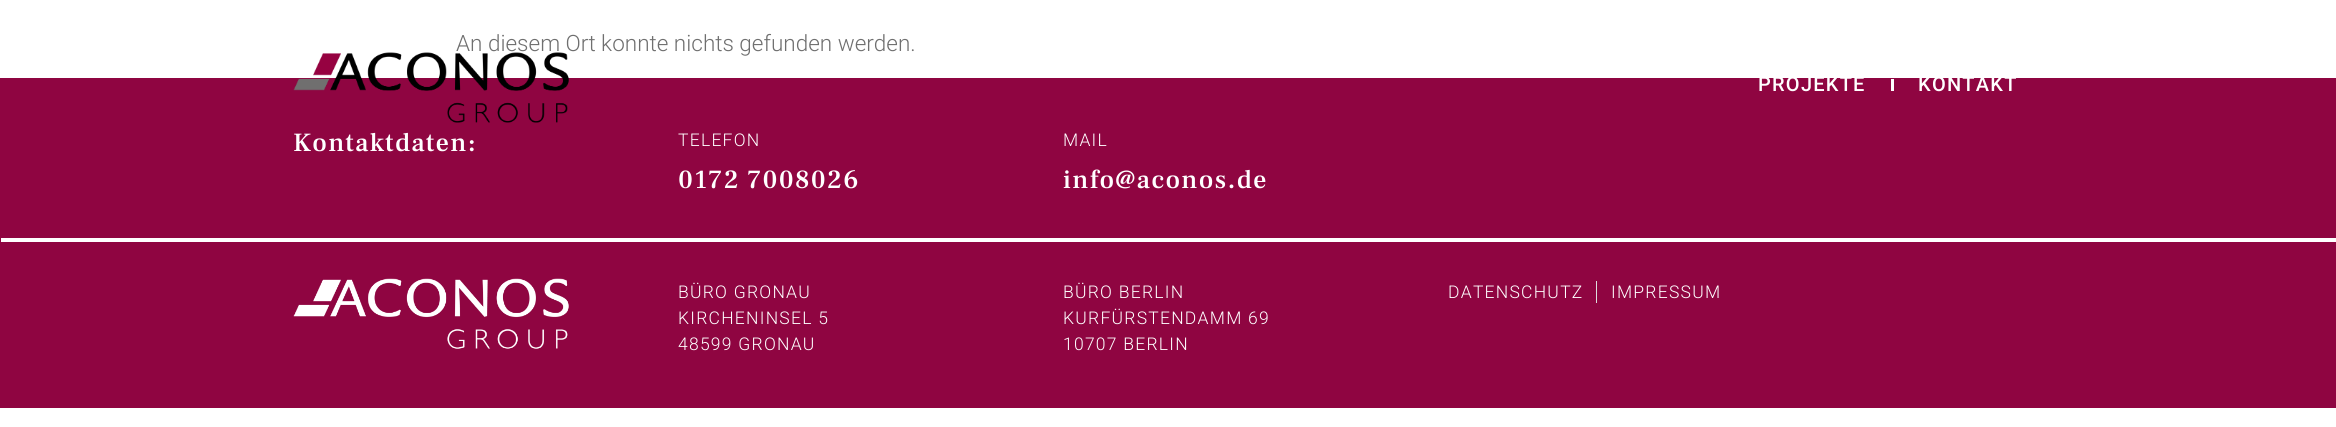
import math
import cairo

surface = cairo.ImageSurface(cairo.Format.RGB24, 2336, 427)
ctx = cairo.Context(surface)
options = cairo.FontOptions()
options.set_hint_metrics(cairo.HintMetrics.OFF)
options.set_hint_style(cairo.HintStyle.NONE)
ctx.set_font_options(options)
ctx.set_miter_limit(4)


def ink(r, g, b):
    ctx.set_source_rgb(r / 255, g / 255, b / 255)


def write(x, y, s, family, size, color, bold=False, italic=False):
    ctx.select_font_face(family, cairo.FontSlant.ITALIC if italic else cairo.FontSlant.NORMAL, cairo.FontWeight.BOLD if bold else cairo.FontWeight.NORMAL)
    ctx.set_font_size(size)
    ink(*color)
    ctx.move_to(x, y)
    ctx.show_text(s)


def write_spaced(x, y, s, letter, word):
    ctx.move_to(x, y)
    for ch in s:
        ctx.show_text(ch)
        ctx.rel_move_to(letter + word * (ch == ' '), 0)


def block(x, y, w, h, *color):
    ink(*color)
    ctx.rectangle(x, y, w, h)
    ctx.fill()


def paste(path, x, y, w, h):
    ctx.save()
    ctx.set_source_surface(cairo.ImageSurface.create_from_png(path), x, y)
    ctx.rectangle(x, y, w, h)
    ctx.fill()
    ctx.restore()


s1 = dict(family="Roboto Light", size=22.5, color=(111, 111, 111))

ink(255, 255, 255)
ctx.paint()
write(456, 51, "An diesem Ort konnte nichts gefunden werden.", **s1)
block(0, 78, 2336, 330, 143, 5, 65)
paste("pic1.png", 293, 52, 276, 71)
ctx.select_font_face("Roboto Medium")
ctx.set_font_size(20)
ink(255, 255, 255)
write_spaced(1758, 91, "PROJEKTE", 1.25, 0)
block(1891, 79, 3, 12, 255, 255, 255)
write_spaced(1918, 91, "KONTAKT", 1.25, 0)
ctx.select_font_face("Frank Ruhl Libre Medium")
ctx.set_font_size(26.25)
write_spaced(293, 151, "Kontaktdaten:", 1.25, 0)
ctx.select_font_face("Roboto Light")
ctx.set_font_size(17.5)
write_spaced(678, 146, "TELEFON", 1.25, 0)
ctx.select_font_face("Frank Ruhl Libre Medium")
ctx.set_font_size(26.25)
write_spaced(678, 188, "0172 7008026", 1.25, 0)
ctx.select_font_face("Roboto Light")
ctx.set_font_size(17.5)
write_spaced(1063, 146, "MAIL", 1.25, 0)
ctx.select_font_face("Frank Ruhl Libre Medium")
ctx.set_font_size(26.25)
write_spaced(1063, 188, "info@aconos.de", 1.25, 0)
block(1, 238, 2335, 4, 255, 255, 255)
paste("pic2.png", 293, 278, 276, 71)
ctx.select_font_face("Roboto Light")
ctx.set_font_size(17.5)
write_spaced(678, 298, "BÜRO GRONAU", 1.25, 0)
write_spaced(678, 324, "KIRCHENINSEL 5", 1.25, 0)
write_spaced(678, 350, "48599 GRONAU", 1.25, 0)
write_spaced(1063, 298, "BÜRO BERLIN", 1.25, 0)
write_spaced(1063, 324, "KURFÜRSTENDAMM 69", 1.25, 0)
write_spaced(1063, 350, "10707 BERLIN", 1.25, 0)
write_spaced(1448, 298, "DATENSCHUTZ", 1.25, 0)
block(1596, 281, 1, 22, 221, 221, 221)
ink(255, 255, 255)
write_spaced(1611, 298, "IMPRESSUM", 1.25, 0)
surface.write_to_png("screenshot.png")
